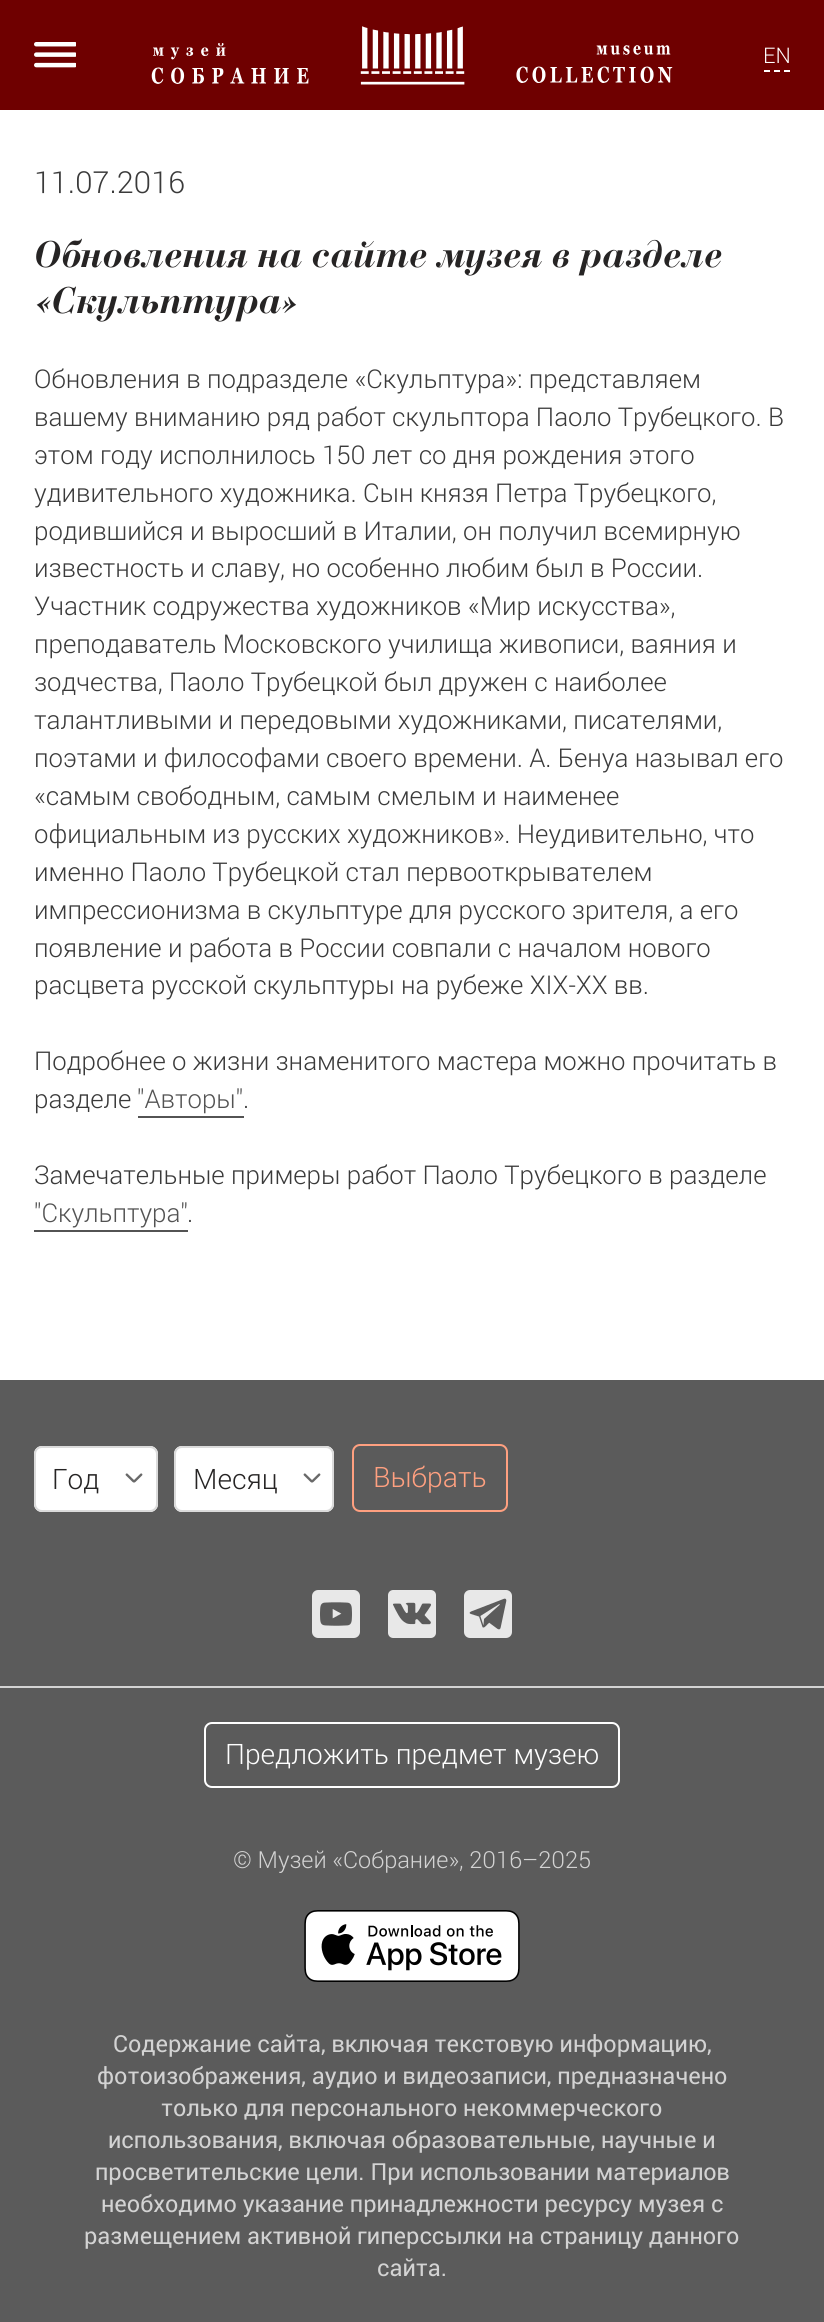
import math
import cairo

surface = cairo.ImageSurface(cairo.Format.RGB24, 824, 2322)
ctx = cairo.Context(surface)
options = cairo.FontOptions()
options.set_hint_metrics(cairo.HintMetrics.OFF)
options.set_hint_style(cairo.HintStyle.NONE)
ctx.set_font_options(options)
ctx.set_miter_limit(4)


def ink(r, g, b):
    ctx.set_source_rgb(r / 255, g / 255, b / 255)


def write(x, y, s, family, size, color, bold=False, italic=False):
    ctx.select_font_face(family, cairo.FontSlant.ITALIC if italic else cairo.FontSlant.NORMAL, cairo.FontWeight.BOLD if bold else cairo.FontWeight.NORMAL)
    ctx.set_font_size(size)
    ink(*color)
    ctx.move_to(x, y)
    ctx.show_text(s)


def block(x, y, w, h, *color):
    ink(*color)
    ctx.rectangle(x, y, w, h)
    ctx.fill()


def round_path(x, y, w, h, r):
    ctx.new_sub_path()
    for i, (u, v) in enumerate([(x + w - r, y + h - r), (x + r, y + h - r), (x + r, y + r), (x + w - r, y + r)]):
        ctx.arc(u, v, r, i * math.pi / 2, (i + 1) * math.pi / 2)
    ctx.close_path()


def paste(path, x, y, w, h):
    ctx.save()
    ctx.set_source_surface(cairo.ImageSurface.create_from_png(path), x, y)
    ctx.rectangle(x, y, w, h)
    ctx.fill()
    ctx.restore()


s1 = dict(family="Roboto Light", size=22, color=(255, 255, 255))
s2 = dict(family="Roboto Light", size=31, color=(58, 58, 58))
s3 = dict(family="Bodoni", size=38.4, color=(38, 36, 36), bold=True, italic=True)
s4 = dict(family="Roboto Light", size=26.4, color=(58, 58, 58))
s5 = dict(family="Roboto Light", size=26.4, color=(83, 83, 83))
s6 = dict(family="Roboto Light", size=28.75, color=(38, 36, 36))
s7 = dict(family="Roboto Light", size=28.75, color=(255, 160, 128))
s8 = dict(family="Roboto Light", size=28.75, color=(255, 255, 255))
s9 = dict(family="Roboto Light", size=24, color=(211, 211, 211))
s10 = dict(family="Roboto", size=24, color=(211, 211, 211))

ink(255, 255, 255)
ctx.paint()
block(0, 0, 824, 110, 111, 0, 0)
paste("pic1.png", 34, 42, 42, 26)
paste("pic2.png", 151, 26, 522, 59)
write(763, 63, "EN", **s1)
ctx.new_path()
ctx.move_to(764, 71)
ctx.line_to(770, 71)
ctx.move_to(774, 71)
ctx.line_to(780, 71)
ctx.move_to(784, 71)
ctx.line_to(790, 71)
ctx.stroke()
write(34, 193, "11.07.2016", **s2)
write(34, 267, "Обновления на сайте музея в разделе", **s3)
write(34, 313, "«Скульптура»", **s3)
write(34, 388, "Обновления в подразделе «Скульптура»: представляем", **s4)
write(34, 426, "вашему вниманию ряд работ скульптора Паоло Трубецкого. В", **s4)
write(34, 464, "этом году исполнилось 150 лет со дня рождения этого", **s4)
write(34, 502, "удивительного художника. Сын князя Петра Трубецкого,", **s4)
write(34, 540, "родившийся и выросший в Италии, он получил всемирную", **s4)
write(34, 577, "известность и славу, но особенно любим был в России.", **s4)
write(34, 615, "Участник содружества художников «Мир искусства»,", **s4)
write(34, 653, "преподаватель Московского училища живописи, ваяния и", **s4)
write(34, 691, "зодчества, Паоло Трубецкой был дружен с наиболее", **s4)
write(34, 729, "талантливыми и передовыми художниками, писателями,", **s4)
write(34, 767, "поэтами и философами своего времени. А. Бенуа называл его", **s4)
write(34, 805, "«самым свободным, самым смелым и наименее", **s4)
write(34, 843, "официальным из русских художников». Неудивительно, что", **s4)
write(34, 881, "именно Паоло Трубецкой стал первооткрывателем", **s4)
write(34, 919, "импрессионизма в скульптуре для русского зрителя, а его", **s4)
write(34, 957, "появление и работа в России совпали с началом нового", **s4)
write(34, 994, "расцвета русской скульптуры на рубеже ХIХ-ХХ вв.", **s4)
write(34, 1070, "Подробнее о жизни знаменитого мастера можно прочитать в", **s4)
write(34, 1108, "разделе", **s4)
write(137, 1108, "\"Авторы\"", **s5)
block(138, 1116, 106, 2, 83, 83, 83)
write(243, 1108, ".", **s4)
write(34, 1184, "Замечательные примеры работ Паоло Трубецкого в разделе", **s4)
write(34, 1222, "\"Скульптура\"", **s5)
block(34, 1230, 154, 2, 83, 83, 83)
write(187, 1222, ".", **s4)
block(0, 1380, 824, 942, 91, 91, 91)
ink(255, 255, 255)
round_path(34, 1446, 124, 66, 8)
ctx.fill()
paste("pic3.png", 125, 1473, 18, 10)
round_path(35, 1447, 122, 64, 7)
ink(219, 219, 219)
ctx.stroke()
write(52, 1489, "Год", **s6)
ink(255, 255, 255)
round_path(174, 1446, 160, 66, 8)
ctx.fill()
paste("pic3.png", 303, 1473, 18, 10)
round_path(175, 1447, 158, 64, 7)
ink(219, 219, 219)
ctx.stroke()
write(193, 1489, "Месяц", **s6)
round_path(353, 1445, 154, 66, 7)
ink(255, 160, 128)
ctx.stroke()
write(373, 1487, "Выбрать", **s7)
paste("pic4.png", 312, 1590, 48, 48)
paste("pic5.png", 388, 1590, 48, 48)
paste("pic6.png", 464, 1590, 48, 48)
block(0, 1686, 824, 2, 211, 211, 211)
round_path(205, 1723, 414, 64, 7)
ink(255, 255, 255)
ctx.stroke()
write(225, 1764, "Предложить предмет музею", **s8)
write(233, 1868, "© Музей «Собрание», 2016–2025", **s9)
paste("pic7.png", 304, 1910, 216, 72)
write(113, 2052, "Содержание сайта, включая текстовую информацию,", **s10)
write(97, 2084, "фотоизображения, аудио и видеозаписи, предназначено", **s10)
write(161, 2116, "только для персонального некоммерческого", **s10)
write(108, 2148, "использования, включая образовательные, научные и", **s10)
write(95, 2180, "просветительские цели. При использовании материалов", **s10)
write(101, 2212, "необходимо указание принадлежности ресурсу музея с", **s10)
write(84, 2244, "размещением активной гиперссылки на страницу данного", **s10)
write(377, 2276, "сайта.", **s10)
surface.write_to_png("screenshot.png")
